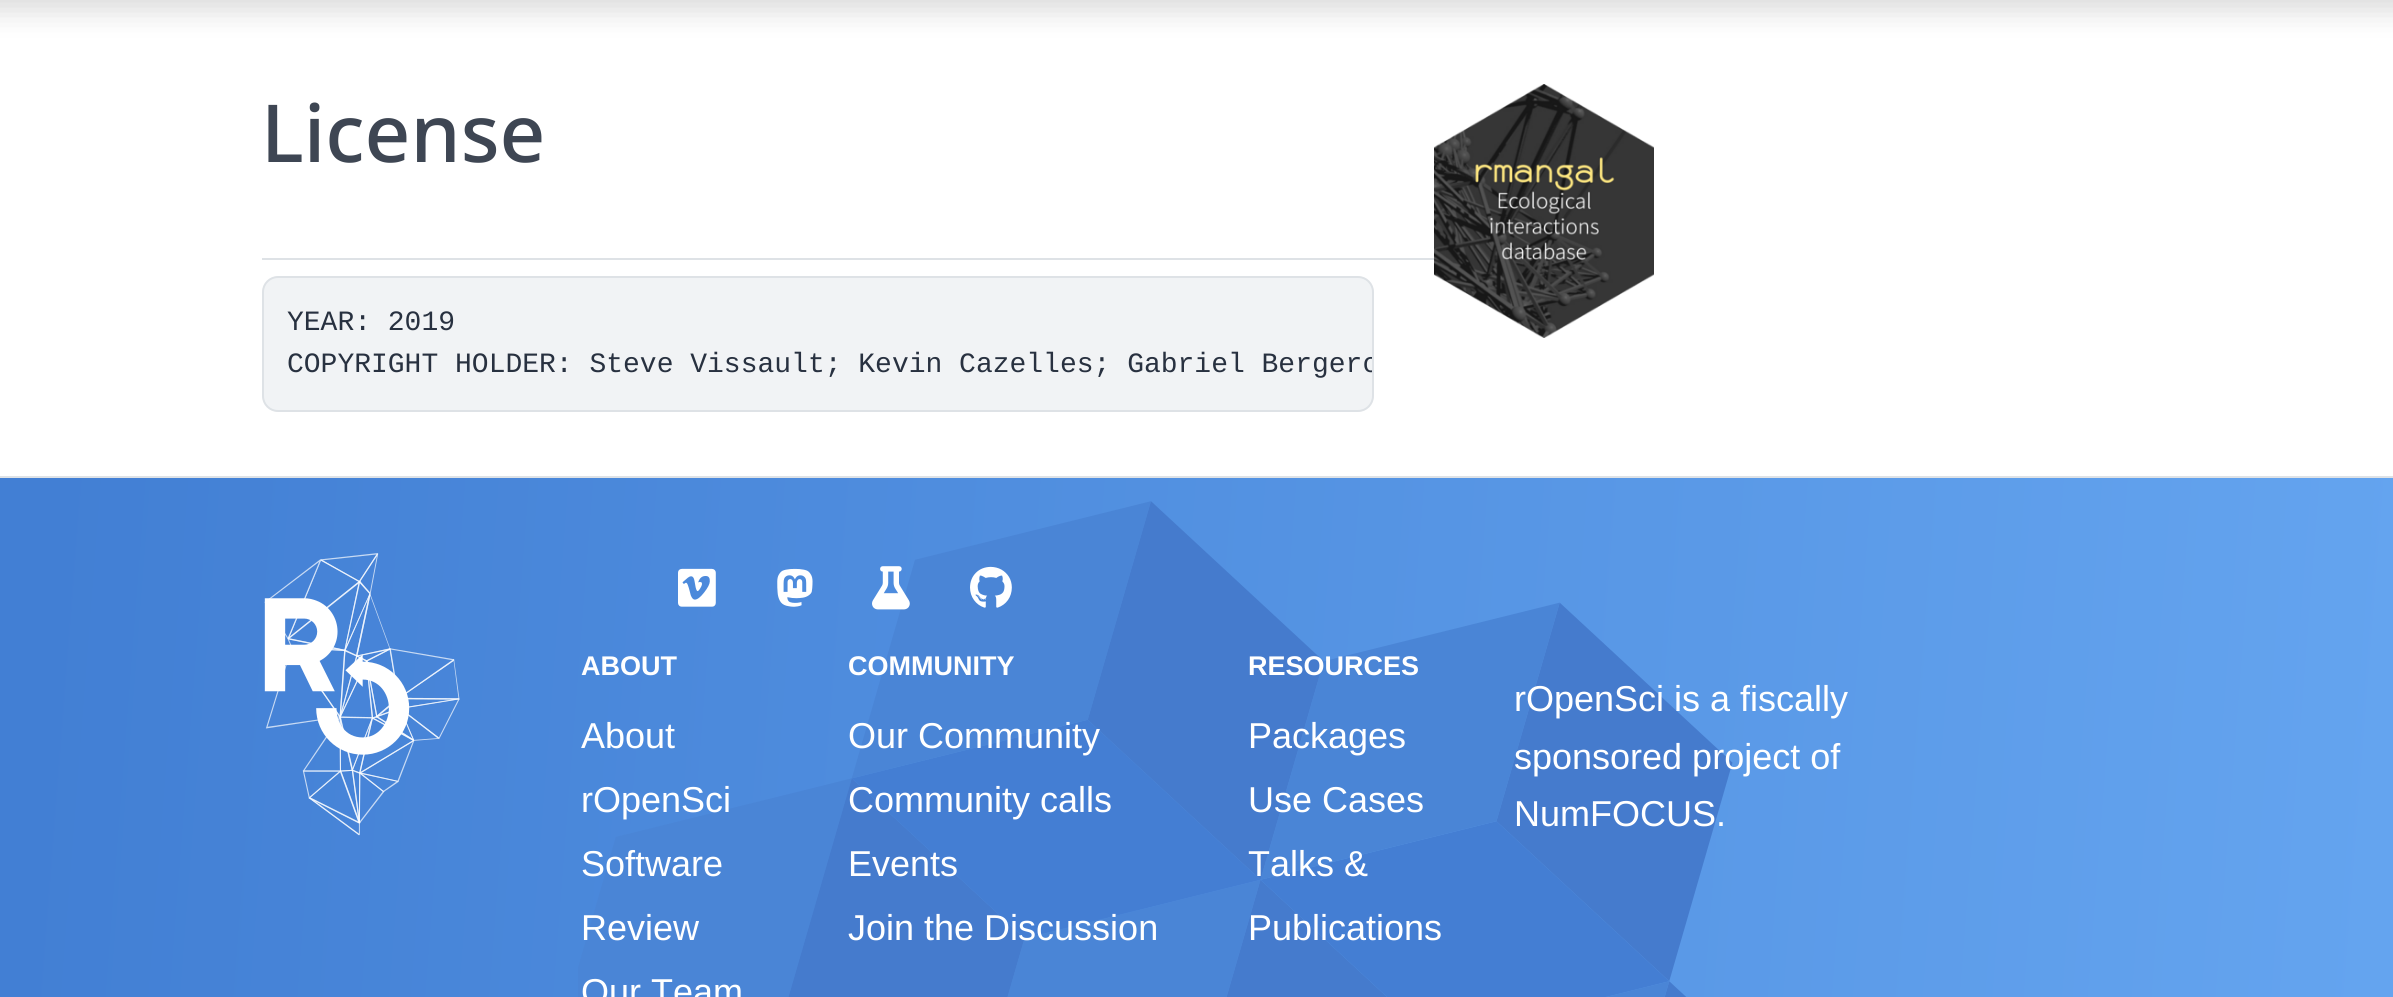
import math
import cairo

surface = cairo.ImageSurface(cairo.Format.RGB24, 2393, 997)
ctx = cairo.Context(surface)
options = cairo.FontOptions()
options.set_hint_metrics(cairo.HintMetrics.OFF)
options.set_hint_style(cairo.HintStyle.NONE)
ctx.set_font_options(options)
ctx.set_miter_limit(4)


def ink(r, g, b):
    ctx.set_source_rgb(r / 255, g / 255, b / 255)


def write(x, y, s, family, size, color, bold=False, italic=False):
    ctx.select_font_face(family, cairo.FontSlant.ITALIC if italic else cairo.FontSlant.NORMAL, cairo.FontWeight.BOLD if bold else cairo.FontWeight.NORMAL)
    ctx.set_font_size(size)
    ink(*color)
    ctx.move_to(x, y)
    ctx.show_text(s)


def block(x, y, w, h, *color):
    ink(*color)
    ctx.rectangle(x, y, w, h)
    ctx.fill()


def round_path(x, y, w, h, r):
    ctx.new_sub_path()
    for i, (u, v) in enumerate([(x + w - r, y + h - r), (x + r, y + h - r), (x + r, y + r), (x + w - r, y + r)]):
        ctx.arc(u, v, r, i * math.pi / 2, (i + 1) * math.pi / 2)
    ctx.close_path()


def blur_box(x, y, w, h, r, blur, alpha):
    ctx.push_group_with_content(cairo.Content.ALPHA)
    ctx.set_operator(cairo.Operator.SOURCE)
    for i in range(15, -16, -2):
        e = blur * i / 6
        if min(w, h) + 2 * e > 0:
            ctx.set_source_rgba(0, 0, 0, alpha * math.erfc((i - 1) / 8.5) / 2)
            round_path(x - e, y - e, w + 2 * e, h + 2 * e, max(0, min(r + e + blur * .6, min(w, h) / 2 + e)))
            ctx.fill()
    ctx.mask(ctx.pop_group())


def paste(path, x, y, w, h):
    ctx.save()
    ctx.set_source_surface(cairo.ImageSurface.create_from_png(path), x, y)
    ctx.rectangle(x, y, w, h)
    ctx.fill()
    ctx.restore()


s1 = dict(family="Noto Sans Medium", size=80, color=(62, 70, 83))
s2 = dict(family="Liberation Mono", size=28, color=(40, 49, 64))
s3 = dict(family="Liberation Sans", size=27, color=(255, 255, 255), bold=True)
s4 = dict(family="Liberation Sans", size=36, color=(255, 255, 255))

ink(255, 255, 255)
ctx.paint()
ink(0, 0, 0)
blur_box(-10, -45, 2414, 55, 0, 15, 0.15)
block(262, 258, 1172, 2, 222, 226, 230)
write(261, 162, "License", **s1)
paste("pic1.png", 1434, 84, 220, 254)
ink(241, 243, 245)
round_path(263, 277, 1110, 134, 15)
ctx.fill_preserve()
ink(222, 226, 230)
ctx.stroke()
write(287, 330, "YEAR: 2019", **s2)
ctx.save()
round_path(264, 278, 1108, 132, 14)
ctx.clip()
write(287, 372, "COPYRIGHT HOLDER: Steve Vissault; Kevin Cazelles; Gabriel Bergero", **s2)
ctx.restore()
gradient = cairo.LinearGradient(-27, 824, 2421, 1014)
gradient.add_color_stop_rgba(0.02, 0.259, 0.498, 0.831, 1)
gradient.add_color_stop_rgba(0.98, 0.392, 0.643, 0.937, 1)
ctx.set_source(gradient)
ctx.rectangle(0, 478, 2393, 519)
ctx.fill()
paste("pic2.png", 578, 501, 1155, 496)
block(0, 476, 2393, 2, 222, 226, 230)
paste("pic3.png", 264, 553, 196, 283)
paste("pic4.png", 678, 568, 38, 39)
paste("pic5.png", 777, 568, 36, 39)
paste("pic6.png", 872, 566, 38, 44)
paste("pic7.png", 970, 566, 42, 42)
write(581, 675, "ABOUT", **s3)
write(581, 748, "About", **s4)
write(581, 812, "rOpenSci", **s4)
write(581, 876, "Software", **s4)
write(581, 940, "Review", **s4)
write(581, 1004, "Our Team", **s4)
write(848, 675, "COMMUNITY", **s3)
write(848, 748, "Our Community", **s4)
write(848, 812, "Community calls", **s4)
write(848, 876, "Events", **s4)
write(848, 940, "Join the Discussion", **s4)
write(1248, 675, "RESOURCES", **s3)
write(1248, 748, "Packages", **s4)
write(1248, 812, "Use Cases", **s4)
write(1248, 876, "Talks &", **s4)
write(1248, 940, "Publications", **s4)
write(1514, 711, "rOpenSci is a fiscally", **s4)
write(1514, 769, "sponsored project of", **s4)
write(1514, 826, "NumFOCUS.", **s4)
surface.write_to_png("screenshot.png")
